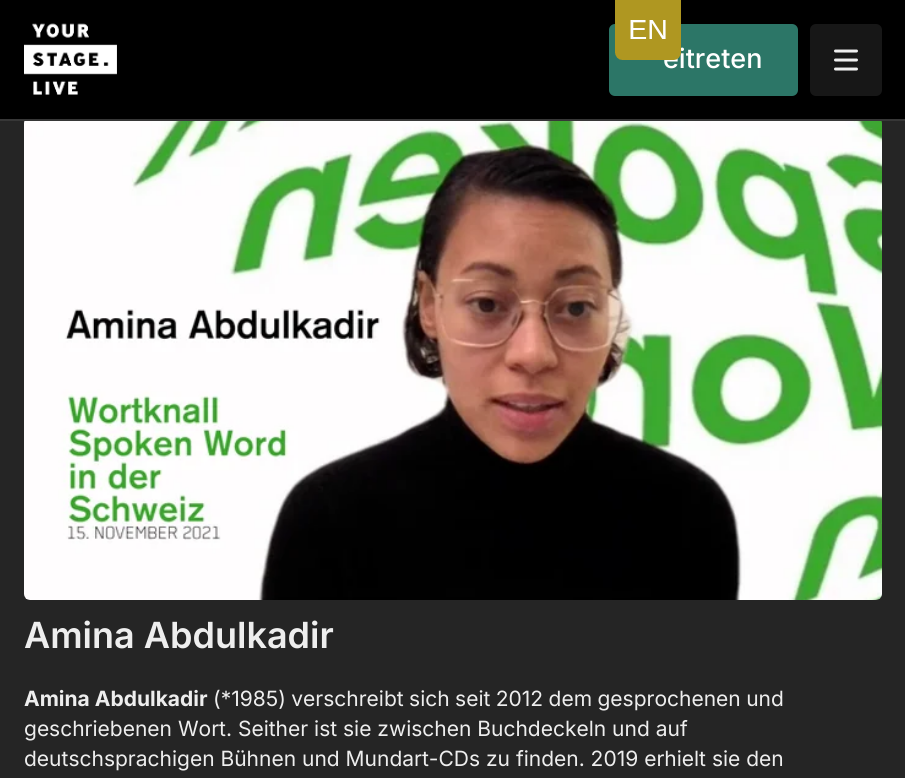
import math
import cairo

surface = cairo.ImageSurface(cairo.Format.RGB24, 905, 778)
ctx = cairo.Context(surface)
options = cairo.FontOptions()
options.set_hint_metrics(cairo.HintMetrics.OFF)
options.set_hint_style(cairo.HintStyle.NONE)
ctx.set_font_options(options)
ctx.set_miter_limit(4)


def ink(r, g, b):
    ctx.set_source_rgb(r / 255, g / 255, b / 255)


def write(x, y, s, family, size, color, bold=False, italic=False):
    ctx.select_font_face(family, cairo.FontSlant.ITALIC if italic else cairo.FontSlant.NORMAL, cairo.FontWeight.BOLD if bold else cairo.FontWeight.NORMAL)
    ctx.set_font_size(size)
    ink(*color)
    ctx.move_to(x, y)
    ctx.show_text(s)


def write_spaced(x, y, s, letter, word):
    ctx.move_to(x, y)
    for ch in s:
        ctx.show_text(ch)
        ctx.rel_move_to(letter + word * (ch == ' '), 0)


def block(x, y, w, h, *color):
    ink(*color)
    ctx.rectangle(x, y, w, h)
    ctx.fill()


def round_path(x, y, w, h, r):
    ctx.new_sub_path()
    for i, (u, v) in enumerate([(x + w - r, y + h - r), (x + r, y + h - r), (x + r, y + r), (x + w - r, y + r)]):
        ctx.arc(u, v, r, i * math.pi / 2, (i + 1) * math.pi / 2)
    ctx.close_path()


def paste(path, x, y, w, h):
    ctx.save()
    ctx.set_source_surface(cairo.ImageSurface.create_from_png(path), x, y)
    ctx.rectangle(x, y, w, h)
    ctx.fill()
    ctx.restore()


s1 = dict(family="Inter Medium", size=27, color=(255, 255, 255))
s2 = dict(family="Inter SemiBold", size=36, color=(238, 238, 238))
s3 = dict(family="Inter", size=21, color=(238, 238, 238), bold=True)
s4 = dict(family="Inter", size=21, color=(238, 238, 238))

ink(37, 37, 37)
ctx.paint()
block(0, 0, 905, 119, 0, 0, 0)
ink(44, 118, 103)
round_path(609, 24, 189, 72, 6)
ctx.fill()
write(663, 68, "eitreten", **s1)
paste("pic1.png", 615, 0, 66, 60)
block(0, 119, 905, 2, 55, 55, 55)
paste("pic2.png", 24, 23, 93, 72)
ink(23, 23, 23)
round_path(810, 24, 72, 72, 6)
ctx.fill()
paste("pic3.png", 834, 49, 24, 22)
paste("pic4.png", 24, 121, 858, 479)
write(24, 648, "Amina Abdulkadir", **s2)
write(24, 706, "Amina Abdulkadir", **s3)
ctx.select_font_face("Inter")
write_spaced(213, 706, "(*1985) verschreibt sich seit 2012 dem gesprochenen und", 0, -0.5)
write(24, 736, "geschriebenen Wort. Seither ist sie zwischen Buchdeckeln und auf", **s4)
write(24, 766, "deutschsprachigen Bühnen und Mundart-CDs zu finden. 2019 erhielt sie den", **s4)
surface.write_to_png("screenshot.png")
